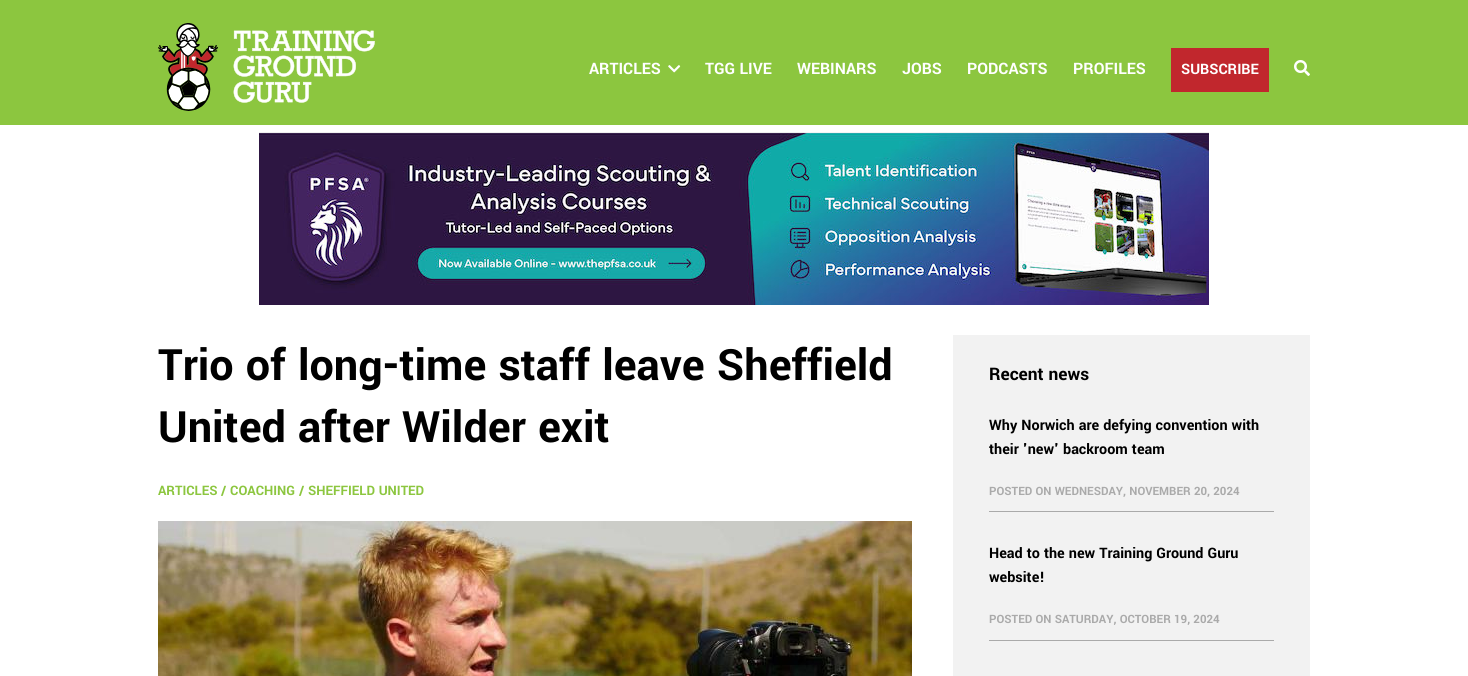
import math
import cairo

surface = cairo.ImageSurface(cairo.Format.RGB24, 1468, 676)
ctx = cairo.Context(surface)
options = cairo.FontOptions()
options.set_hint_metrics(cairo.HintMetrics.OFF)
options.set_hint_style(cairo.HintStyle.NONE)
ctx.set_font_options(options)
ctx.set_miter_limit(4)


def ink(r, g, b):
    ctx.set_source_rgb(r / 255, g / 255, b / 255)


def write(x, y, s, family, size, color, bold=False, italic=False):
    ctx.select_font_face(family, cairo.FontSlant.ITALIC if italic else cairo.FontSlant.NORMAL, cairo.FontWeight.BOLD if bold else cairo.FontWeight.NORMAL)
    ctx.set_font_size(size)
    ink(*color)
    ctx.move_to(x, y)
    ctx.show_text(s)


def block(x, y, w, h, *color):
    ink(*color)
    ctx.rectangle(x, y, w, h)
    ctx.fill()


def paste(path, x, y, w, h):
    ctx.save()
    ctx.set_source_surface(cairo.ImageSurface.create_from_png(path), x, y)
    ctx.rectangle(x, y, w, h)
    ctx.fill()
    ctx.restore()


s1 = dict(family="Yantramanav", size=17.5, color=(255, 255, 255), bold=True)
s2 = dict(family="Yantramanav", size=16, color=(255, 255, 255), bold=True)
s3 = dict(family="Yantramanav", size=48, color=(0, 0, 0), bold=True)
s4 = dict(family="Yantramanav", size=14.5, color=(140, 198, 63), bold=True)
s5 = dict(family="Yantramanav", size=19.25, color=(0, 0, 0), bold=True)
s6 = dict(family="Yantramanav", size=16, color=(0, 0, 0), bold=True)
s7 = dict(family="Yantramanav", size=12.75, color=(170, 170, 170), bold=True)

ink(255, 255, 255)
ctx.paint()
block(0, 0, 1468, 125, 140, 198, 63)
paste("pic1.png", 158, 23, 60, 88)
paste("pic2.png", 233, 30, 142, 73)
write(589, 74, "ARTICLES", **s1)
paste("pic3.png", 668, 65, 13, 8)
write(705, 74, "TGG LIVE", **s1)
write(797, 74, "WEBINARS", **s1)
write(902, 74, "JOBS", **s1)
write(967, 74, "PODCASTS", **s1)
write(1073, 74, "PROFILES", **s1)
block(1171, 48, 98, 44, 193, 39, 45)
write(1181, 74, "SUBSCRIBE", **s2)
paste("pic4.png", 1294, 60, 16, 16)
paste("pic5.png", 259, 132, 950, 173)
write(158, 380, "Trio of long-time staff leave Sheffield", **s3)
write(158, 442, "United after Wilder exit", **s3)
write(158, 495, "ARTICLES / COACHING", **s4)
write(299, 495, "/ SHEFFIELD UNITED", **s4)
paste("pic6.png", 158, 521, 754, 155)
block(953, 335, 357, 341, 242, 242, 242)
write(989, 380, "Recent news", **s5)
block(989, 511, 285, 1, 170, 170, 170)
write(989, 430, "Why Norwich are defying convention with", **s6)
write(989, 454, "their 'new' backroom team", **s6)
write(989, 495, "POSTED ON WEDNESDAY, NOVEMBER 20, 2024", **s7)
block(989, 640, 285, 1, 170, 170, 170)
write(989, 558, "Head to the new Training Ground Guru", **s6)
write(989, 582, "website!", **s6)
write(989, 623, "POSTED ON SATURDAY, OCTOBER 19, 2024", **s7)
surface.write_to_png("screenshot.png")
